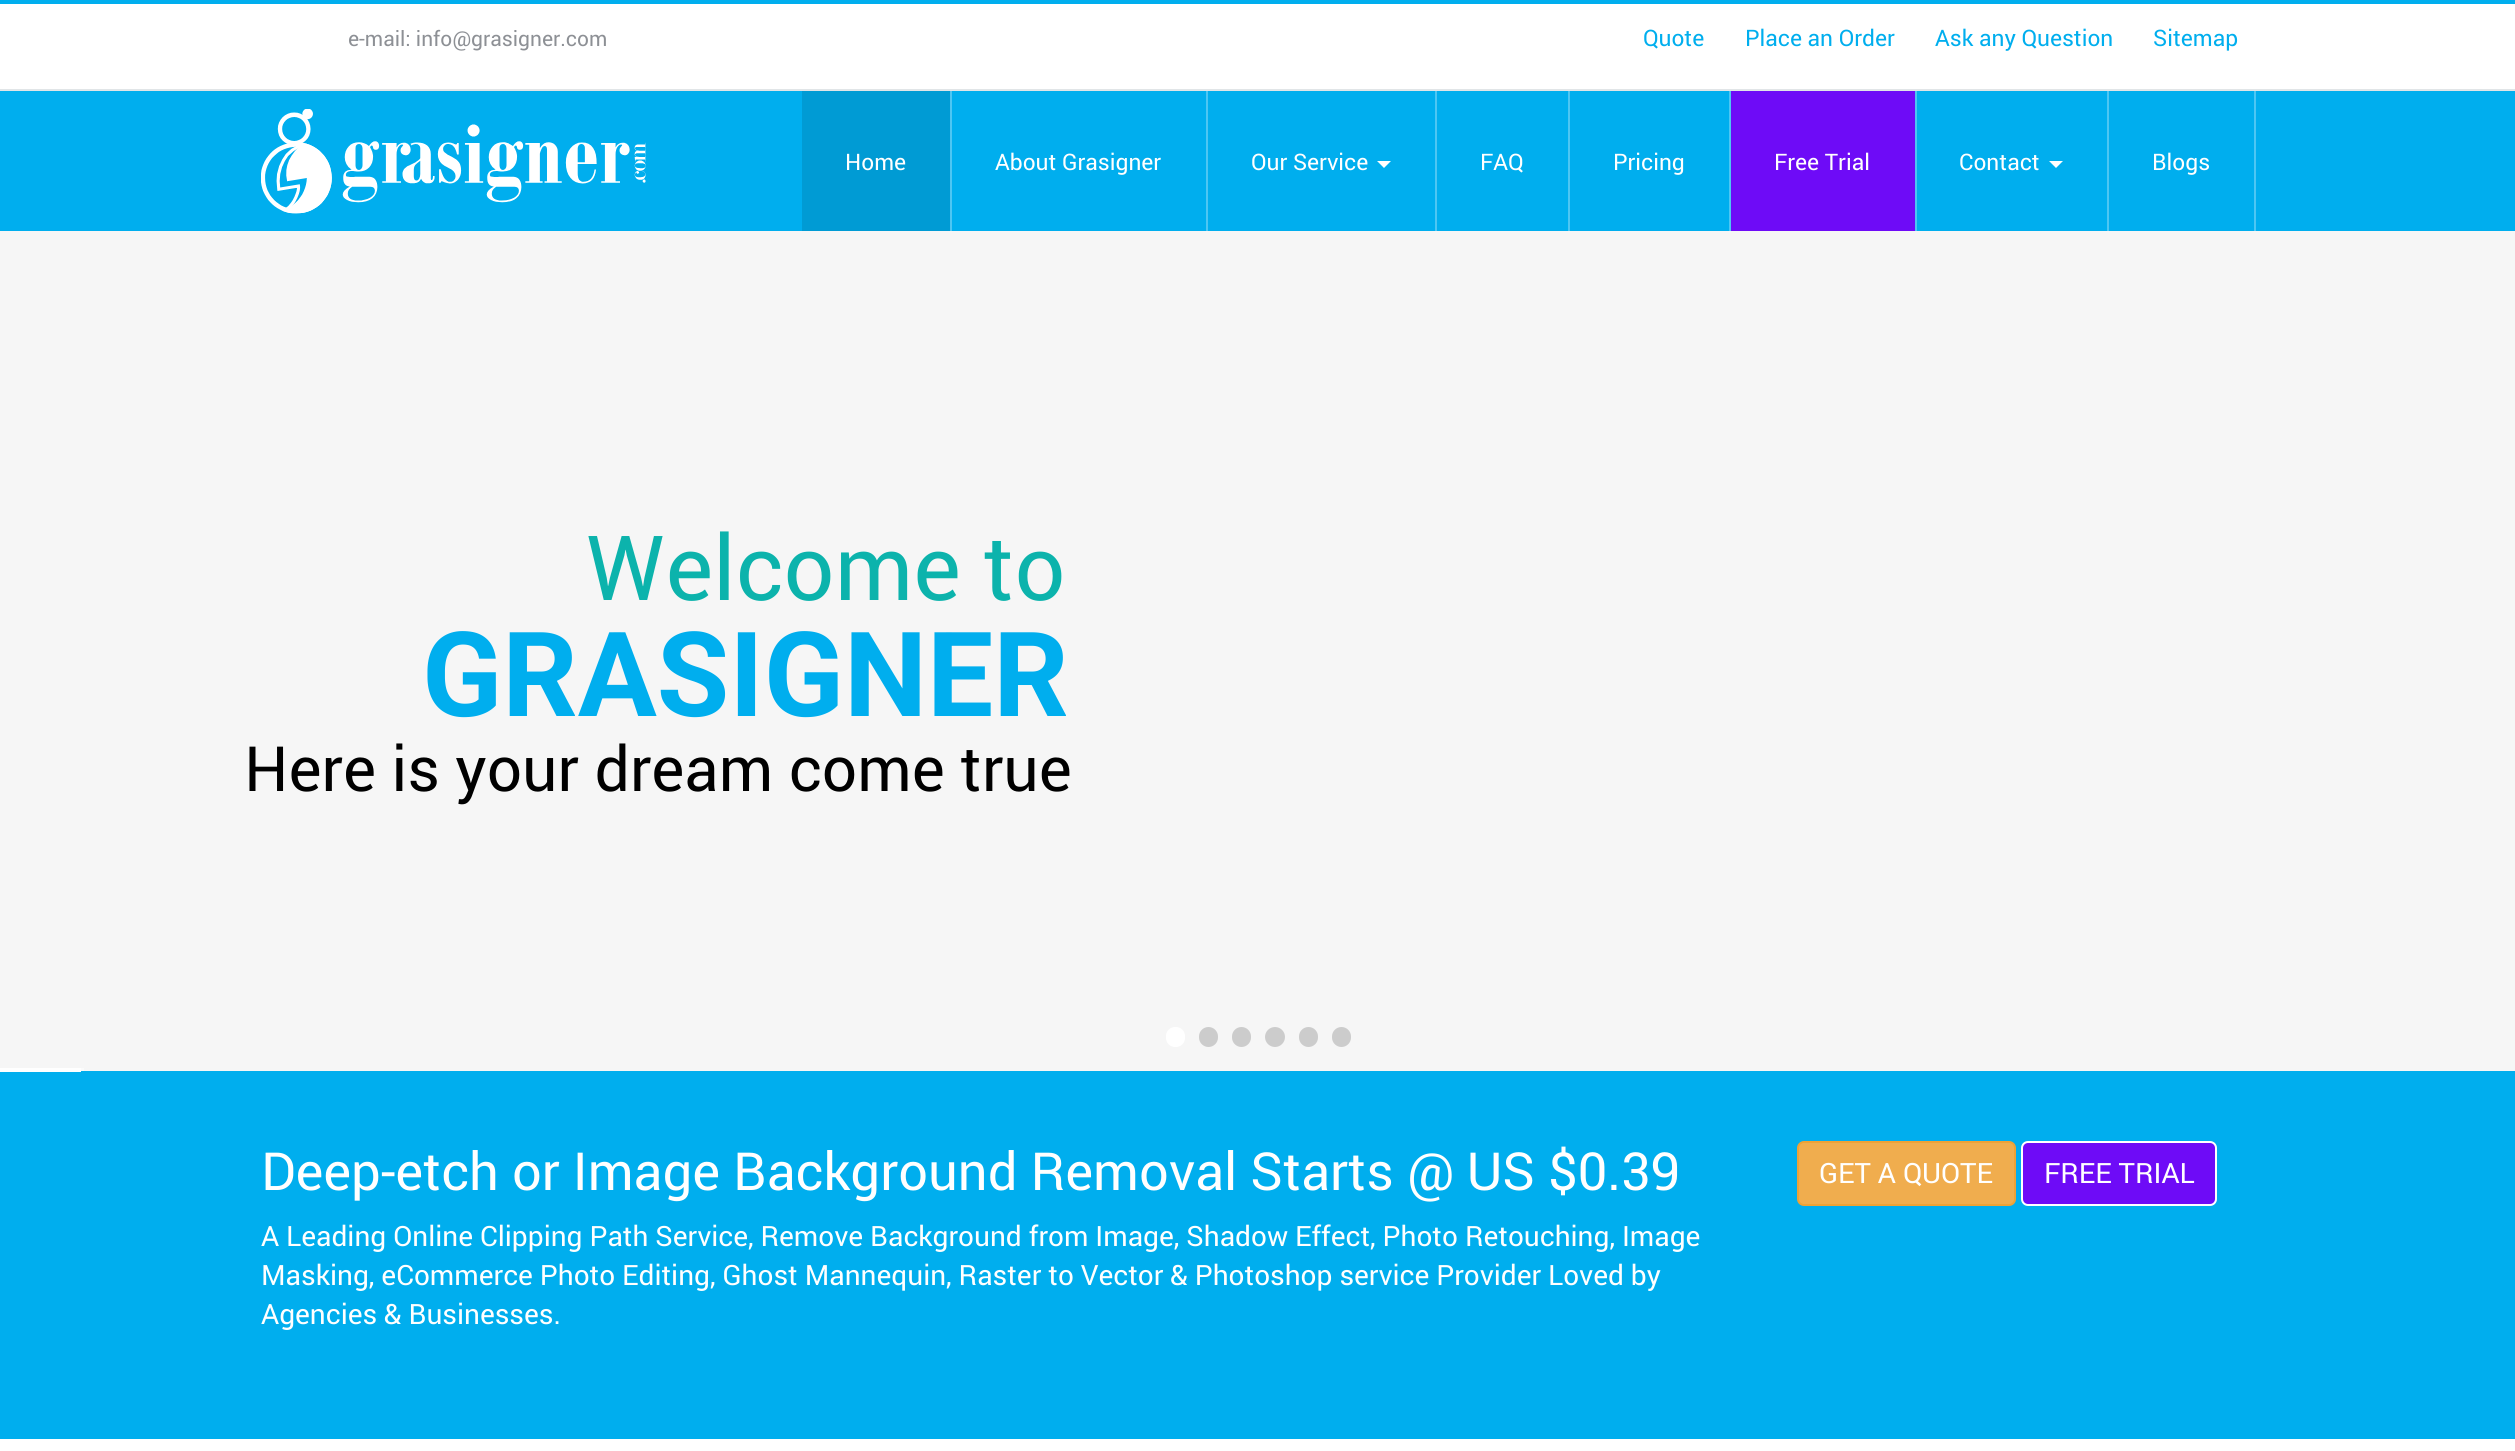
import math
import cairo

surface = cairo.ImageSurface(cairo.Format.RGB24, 2515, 1451)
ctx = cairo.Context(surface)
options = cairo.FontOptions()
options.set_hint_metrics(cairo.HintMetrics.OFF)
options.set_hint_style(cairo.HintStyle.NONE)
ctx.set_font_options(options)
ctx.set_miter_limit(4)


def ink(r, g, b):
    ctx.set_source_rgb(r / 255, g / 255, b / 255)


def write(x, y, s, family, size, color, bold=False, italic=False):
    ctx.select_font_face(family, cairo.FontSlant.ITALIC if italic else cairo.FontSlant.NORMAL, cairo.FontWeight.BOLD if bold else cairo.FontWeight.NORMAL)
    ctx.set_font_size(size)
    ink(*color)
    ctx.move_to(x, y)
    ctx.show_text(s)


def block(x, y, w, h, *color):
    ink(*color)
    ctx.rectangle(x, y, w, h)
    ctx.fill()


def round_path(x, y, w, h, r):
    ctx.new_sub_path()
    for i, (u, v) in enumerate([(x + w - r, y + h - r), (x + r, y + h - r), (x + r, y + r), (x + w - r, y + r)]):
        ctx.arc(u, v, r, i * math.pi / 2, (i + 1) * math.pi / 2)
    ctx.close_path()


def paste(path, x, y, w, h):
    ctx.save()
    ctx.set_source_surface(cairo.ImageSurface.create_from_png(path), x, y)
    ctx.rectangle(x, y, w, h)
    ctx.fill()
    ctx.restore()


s1 = dict(family="Roboto", size=21, color=(141, 144, 149))
s2 = dict(family="Roboto", size=22.75, color=(0, 174, 238))
s3 = dict(family="Roboto", size=22.75, color=(255, 255, 255))
s4 = dict(family="Roboto", size=90, color=(12, 179, 172))
s5 = dict(family="Roboto", size=117.75, color=(0, 174, 238), bold=True)
s6 = dict(family="Roboto", size=62.4, color=(0, 0, 0))
s7 = dict(family="Roboto", size=52.5, color=(255, 255, 255))
s8 = dict(family="Roboto", size=28, color=(255, 255, 255))

ink(255, 255, 255)
ctx.paint()
block(0, 0, 2515, 4, 0, 174, 238)
block(0, 89, 2515, 2, 225, 229, 231)
write(348, 46, "e-mail: info@grasigner.com", **s1)
write(1643, 46, "Quote", **s2)
write(1745, 46, "Place an Order", **s2)
write(1935, 46, "Ask any Question", **s2)
write(2153, 46, "Sitemap", **s2)
block(0, 91, 2515, 140, 0, 174, 238)
paste("pic1.png", 261, 109, 385, 105)
block(802, 91, 148, 140, 0, 155, 212)
block(950, 91, 2, 140, 77, 198, 243)
write(845, 170, "Home", **s3)
block(1206, 91, 2, 140, 77, 198, 243)
write(995, 170, "About Grasigner", **s3)
block(1435, 91, 2, 140, 77, 198, 243)
write(1251, 170, "Our Service", **s3)
ctx.new_path()
ctx.move_to(1377, 161)
ctx.line_to(1391, 161)
ctx.line_to(1384, 168)
ctx.close_path()
ctx.fill()
block(1568, 91, 2, 140, 77, 198, 243)
write(1480, 170, "FAQ", **s3)
block(1729, 91, 2, 140, 77, 198, 243)
write(1613, 170, "Pricing", **s3)
block(1731, 91, 184, 140, 110, 11, 247)
block(1915, 91, 2, 140, 77, 198, 243)
write(1774, 170, "Free Trial", **s3)
block(2107, 91, 2, 140, 77, 198, 243)
write(1959, 170, "Contact", **s3)
ctx.new_path()
ctx.move_to(2049, 161)
ctx.line_to(2063, 161)
ctx.line_to(2056, 168)
ctx.close_path()
ctx.fill()
block(2254, 91, 2, 140, 77, 198, 243)
write(2152, 170, "Blogs", **s3)
block(0, 231, 2515, 840, 246, 246, 246)
write(586, 600, "Welcome to", **s4)
write(422, 716, "GRASIGNER", **s5)
write(244, 791, "Here is your dream come true", **s6)
ink(255, 255, 255)
round_path(1166, 1027, 19, 20, 9)
ctx.fill()
ink(204, 204, 204)
round_path(1199, 1027, 19, 20, 9.5)
ctx.fill()
round_path(1232, 1027, 19, 20, 9.5)
ctx.fill()
ctx.arc(1275, 1037, 10, 0, 2 * math.pi)
ctx.fill()
round_path(1299, 1027, 19, 20, 9.5)
ctx.fill()
round_path(1332, 1027, 19, 20, 9.5)
ctx.fill()
block(0, 1071, 2515, 368, 0, 174, 238)
block(0, 1068, 81, 4, 255, 255, 255)
block(81, 1068, 3, 3, 251, 251, 251)
write(261, 1190, "Deep-etch or Image Background Removal Starts @ US $0.39", **s7)
write(261, 1246, "A Leading Online Clipping Path Service, Remove Background from Image, Shadow Effect, Photo Retouching, Image", **s8)
write(261, 1285, "Masking, eCommerce Photo Editing, Ghost Mannequin, Raster to Vector & Photoshop service Provider Loved by", **s8)
write(261, 1324, "Agencies & Businesses.", **s8)
ink(240, 173, 78)
round_path(1798, 1142, 217, 63, 6)
ctx.fill_preserve()
ink(238, 162, 54)
ctx.stroke()
write(1819, 1183, "GET A QUOTE", **s8)
ink(110, 11, 247)
round_path(2022, 1142, 194, 63, 6)
ctx.fill_preserve()
ink(255, 255, 255)
ctx.stroke()
write(2044, 1183, "FREE TRIAL", **s8)
surface.write_to_png("screenshot.png")
